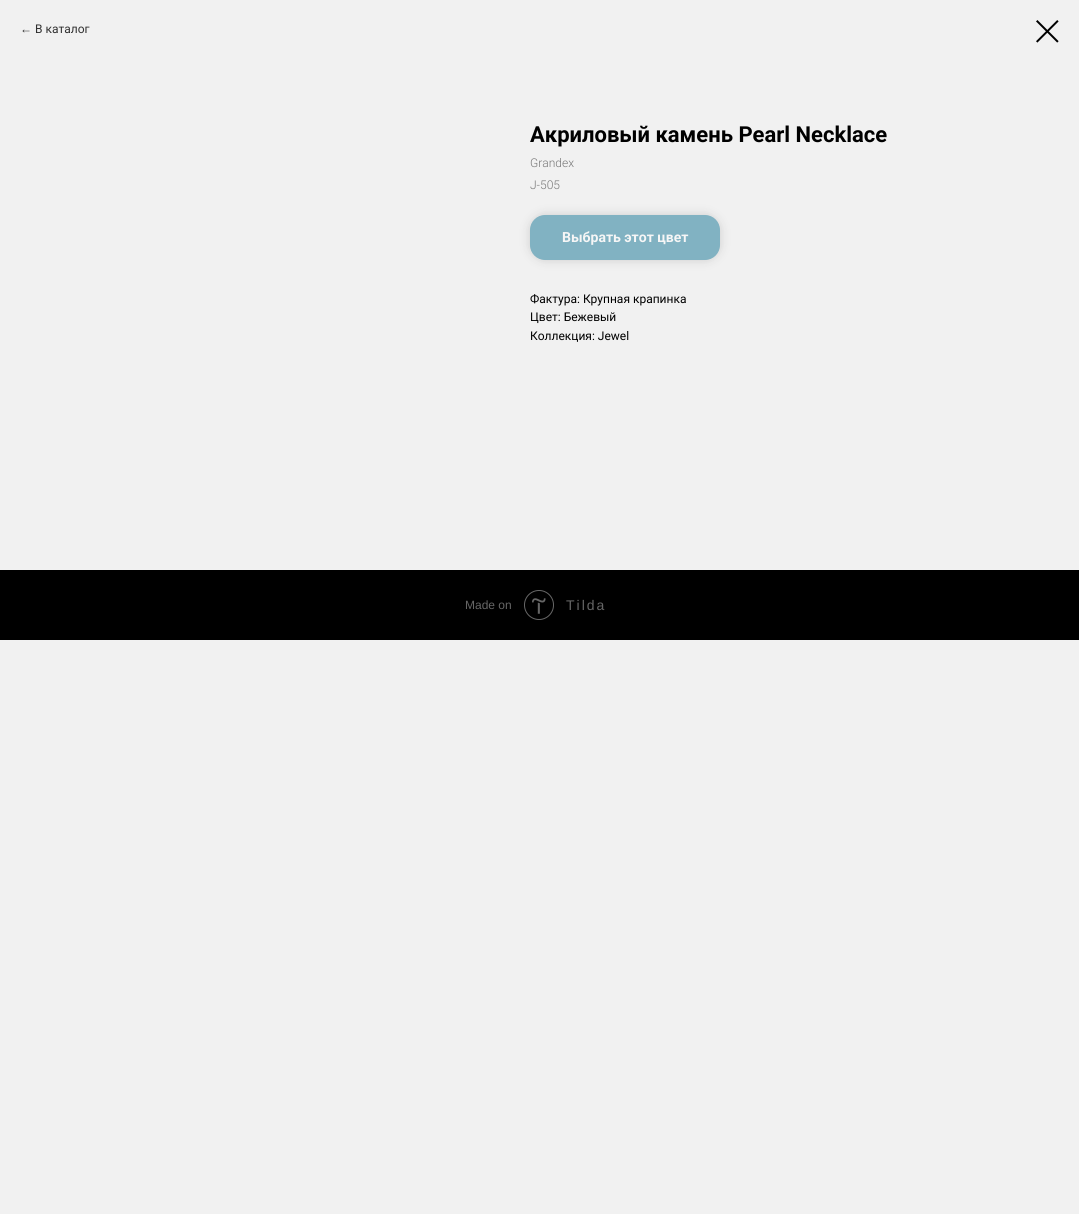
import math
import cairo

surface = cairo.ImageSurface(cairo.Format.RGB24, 1079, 1214)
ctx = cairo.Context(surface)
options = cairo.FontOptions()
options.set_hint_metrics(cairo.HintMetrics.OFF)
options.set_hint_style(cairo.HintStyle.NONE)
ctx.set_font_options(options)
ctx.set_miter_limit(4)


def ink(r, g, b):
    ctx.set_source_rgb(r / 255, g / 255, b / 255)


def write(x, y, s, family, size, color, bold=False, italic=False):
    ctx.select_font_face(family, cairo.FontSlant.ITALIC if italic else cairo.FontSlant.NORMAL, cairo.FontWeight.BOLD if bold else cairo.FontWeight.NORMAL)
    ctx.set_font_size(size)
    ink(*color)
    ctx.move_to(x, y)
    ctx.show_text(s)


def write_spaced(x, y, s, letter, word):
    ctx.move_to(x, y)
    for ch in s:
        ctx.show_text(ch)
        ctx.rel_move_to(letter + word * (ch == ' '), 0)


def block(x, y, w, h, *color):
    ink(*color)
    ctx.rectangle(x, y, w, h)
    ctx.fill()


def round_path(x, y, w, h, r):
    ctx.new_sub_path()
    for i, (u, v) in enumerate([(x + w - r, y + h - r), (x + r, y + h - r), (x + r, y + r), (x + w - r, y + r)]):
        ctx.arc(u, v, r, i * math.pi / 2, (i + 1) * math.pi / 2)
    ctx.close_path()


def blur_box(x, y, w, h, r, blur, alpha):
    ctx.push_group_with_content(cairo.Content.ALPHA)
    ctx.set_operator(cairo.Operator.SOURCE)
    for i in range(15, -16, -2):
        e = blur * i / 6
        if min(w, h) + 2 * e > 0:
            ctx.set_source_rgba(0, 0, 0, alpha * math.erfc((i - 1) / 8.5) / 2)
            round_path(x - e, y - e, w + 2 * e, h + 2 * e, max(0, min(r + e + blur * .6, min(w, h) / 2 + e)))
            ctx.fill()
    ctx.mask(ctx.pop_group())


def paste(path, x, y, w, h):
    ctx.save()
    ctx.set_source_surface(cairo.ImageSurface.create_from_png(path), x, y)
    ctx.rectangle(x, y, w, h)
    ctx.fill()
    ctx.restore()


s1 = dict(family="Liberation Sans", size=12, color=(48, 48, 48))
s2 = dict(family="Roboto", size=12, color=(48, 48, 48))
s3 = dict(family="Roboto", size=22, color=(0, 0, 0), bold=True)
s4 = dict(family="Roboto Light", size=12, color=(119, 119, 119))
s5 = dict(family="Roboto", size=14, color=(246, 246, 246), bold=True)
s6 = dict(family="Roboto", size=12, color=(0, 0, 0))
s7 = dict(family="Liberation Sans", size=12, color=(102, 102, 102))

ink(241, 241, 241)
ctx.paint()
write(20, 33, "←", **s1)
write(35, 33, "В каталог", **s2)
paste("pic1.png", 1036, 20, 23, 23)
write(530, 142, "Акриловый камень Pearl Necklace", **s3)
write(530, 167, "Grandex", **s4)
write(530, 189, "J-505", **s4)
ink(121, 121, 121)
blur_box(530, 215, 190, 45, 15, 5, 0.3)
ink(129, 178, 194)
round_path(530, 215, 190, 45, 15)
ctx.fill()
write(562, 242, "Выбрать этот цвет", **s5)
write(530, 303, "Фактура: Крупная крапинка", **s6)
write(530, 321, "Цвет: Бежевый", **s6)
write(530, 340, "Коллекция: Jewel", **s6)
block(0, 570, 1079, 70, 0, 0, 0)
write(465, 609, "Made on", **s7)
paste("pic2.png", 524, 590, 30, 30)
ctx.set_font_size(14)
write_spaced(566, 610, "Tilda", 2, 0)
surface.write_to_png("screenshot.png")
